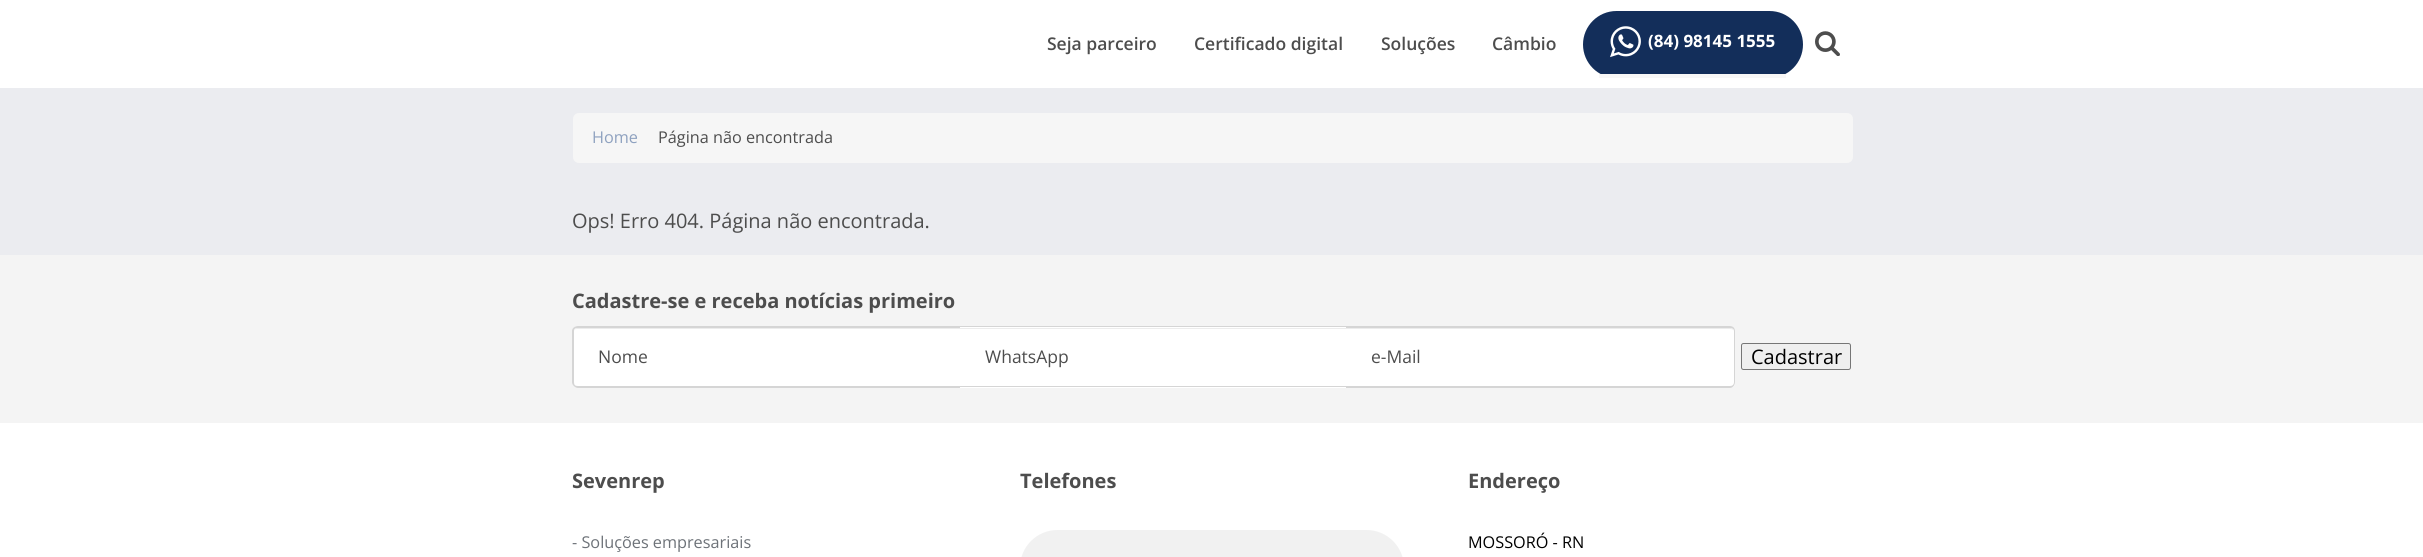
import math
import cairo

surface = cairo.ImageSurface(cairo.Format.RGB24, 2423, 557)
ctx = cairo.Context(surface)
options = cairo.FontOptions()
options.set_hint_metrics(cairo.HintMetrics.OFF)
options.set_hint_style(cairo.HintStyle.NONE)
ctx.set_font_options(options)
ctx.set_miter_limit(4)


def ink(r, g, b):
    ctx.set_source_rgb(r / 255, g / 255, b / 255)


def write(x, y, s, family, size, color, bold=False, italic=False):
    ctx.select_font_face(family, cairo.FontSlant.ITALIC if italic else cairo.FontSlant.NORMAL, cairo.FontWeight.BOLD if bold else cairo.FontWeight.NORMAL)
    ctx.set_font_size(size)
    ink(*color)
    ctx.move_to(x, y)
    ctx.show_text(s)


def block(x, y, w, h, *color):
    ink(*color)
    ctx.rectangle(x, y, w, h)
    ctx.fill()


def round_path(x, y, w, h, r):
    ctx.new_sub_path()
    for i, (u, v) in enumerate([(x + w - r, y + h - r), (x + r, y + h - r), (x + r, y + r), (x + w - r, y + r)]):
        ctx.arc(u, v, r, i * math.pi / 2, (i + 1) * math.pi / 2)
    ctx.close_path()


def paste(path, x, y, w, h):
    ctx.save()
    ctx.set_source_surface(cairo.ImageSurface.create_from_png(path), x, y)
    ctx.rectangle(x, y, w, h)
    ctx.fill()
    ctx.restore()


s1 = dict(family="Open Sans SemiBold", size=17.5, color=(77, 77, 77))
s2 = dict(family="Open Sans", size=17, color=(255, 255, 255), bold=True)
s3 = dict(family="Open Sans", size=16.25, color=(142, 161, 191))
s4 = dict(family="Open Sans", size=16.25, color=(77, 77, 77))
s5 = dict(family="Open Sans", size=20, color=(77, 77, 77))
s6 = dict(family="Open Sans", size=20, color=(77, 77, 77), bold=True)
s7 = dict(family="Open Sans", size=17.5, color=(77, 77, 77))
s8 = dict(family="Open Sans", size=20, color=(0, 0, 0))
s9 = dict(family="Open Sans", size=16.25, color=(109, 114, 120))
s10 = dict(family="Open Sans", size=16.25, color=(0, 0, 0))

ink(235, 236, 240)
ctx.paint()
block(0, 0, 2423, 88, 255, 255, 255)
write(1047, 50, "Seja parceiro", **s1)
write(1194, 50, "Certificado digital", **s1)
write(1381, 50, "Soluções", **s1)
write(1492, 50, "Câmbio", **s1)
ink(19, 46, 90)
round_path(1583, 11, 220, 67, 33.5)
ctx.fill()
block(1599, 74, 187, 4, 248, 247, 247)
paste("pic1.png", 1610, 26, 31, 32)
write(1648, 47, "(84) 98145 1555", **s2)
paste("pic2.png", 1815, 31, 25, 25)
ink(246, 246, 246)
round_path(573, 113, 1280, 50, 6)
ctx.fill()
write(592, 143, "Home", **s3)
write(658, 143, "Página não encontrada", **s4)
write(572, 228, "Ops! Erro 404. Página não encontrada.", **s5)
block(0, 255, 2423, 168, 244, 244, 244)
write(572, 308, "Cadastre-se e receba notícias primeiro", **s6)
ink(255, 255, 255)
ctx.new_path()
ctx.move_to(578, 326)
ctx.line_to(960, 326)
ctx.line_to(960, 388)
ctx.line_to(578, 388)
ctx.curve_to(575, 388, 573, 386, 573, 383)
ctx.line_to(573, 331)
ctx.curve_to(573, 328, 575, 326, 578, 326)
ctx.close_path()
ctx.fill()
ink(236, 236, 236)
ctx.new_path()
ctx.move_to(578, 329)
ctx.line_to(960, 329)
ctx.line_to(960, 328)
ctx.line_to(578, 328)
ctx.curve_to(576, 328, 575, 329, 574, 330)
ctx.curve_to(575, 329, 576, 329, 578, 329)
ctx.close_path()
ctx.fill()
ink(213, 213, 213)
ctx.set_fill_rule(cairo.FillRule.EVEN_ODD)
ctx.new_path()
ctx.move_to(578, 326)
ctx.line_to(960, 326)
ctx.line_to(960, 388)
ctx.line_to(578, 388)
ctx.curve_to(575, 388, 572, 385, 572, 382)
ctx.line_to(572, 331)
ctx.curve_to(572, 328, 575, 326, 578, 326)
ctx.close_path()
ctx.move_to(578, 328)
ctx.line_to(960, 328)
ctx.line_to(960, 386)
ctx.line_to(578, 386)
ctx.curve_to(575, 386, 574, 385, 574, 382)
ctx.line_to(574, 331)
ctx.curve_to(574, 329, 575, 328, 578, 328)
ctx.close_path()
ctx.fill()
write(598, 363, "Nome", **s7)
block(960, 327, 386, 61, 255, 255, 255)
block(960, 328, 386, 1, 236, 236, 236)
block(960, 326, 386, 1, 213, 213, 213)
block(960, 386, 386, 1, 213, 213, 213)
write(985, 363, "WhatsApp", **s7)
ink(255, 255, 255)
ctx.new_path()
ctx.move_to(1346, 326)
ctx.line_to(1730, 326)
ctx.curve_to(1733, 326, 1735, 328, 1735, 331)
ctx.line_to(1735, 383)
ctx.curve_to(1735, 386, 1733, 388, 1730, 388)
ctx.line_to(1346, 388)
ctx.close_path()
ctx.fill()
ink(236, 236, 236)
ctx.set_fill_rule(cairo.FillRule.WINDING)
ctx.new_path()
ctx.move_to(1346, 329)
ctx.line_to(1730, 329)
ctx.curve_to(1732, 329, 1734, 330, 1734, 332)
ctx.curve_to(1734, 330, 1732, 328, 1730, 328)
ctx.line_to(1346, 328)
ctx.close_path()
ctx.fill()
ink(213, 213, 213)
ctx.set_fill_rule(cairo.FillRule.EVEN_ODD)
ctx.new_path()
ctx.move_to(1346, 326)
ctx.line_to(1730, 326)
ctx.curve_to(1733, 326, 1735, 328, 1735, 331)
ctx.line_to(1735, 382)
ctx.curve_to(1735, 385, 1733, 388, 1730, 388)
ctx.line_to(1346, 388)
ctx.close_path()
ctx.move_to(1346, 328)
ctx.line_to(1730, 328)
ctx.curve_to(1732, 328, 1734, 329, 1734, 331)
ctx.line_to(1734, 382)
ctx.curve_to(1734, 385, 1732, 386, 1730, 386)
ctx.line_to(1346, 386)
ctx.close_path()
ctx.fill()
write(1371, 363, "e-Mail", **s7)
ink(239, 239, 239)
round_path(1741.5, 343.5, 109, 26, 2)
ctx.fill_preserve()
ink(118, 118, 118)
ctx.set_line_width(1)
ctx.stroke()
write(1751, 364, "Cadastrar", **s8)
block(0, 423, 2423, 134, 255, 255, 255)
write(572, 488, "Sevenrep", **s6)
write(572, 548, "- Soluções empresariais", **s9)
write(1020, 488, "Telefones", **s6)
ink(241, 241, 241)
round_path(1020, 530, 384, 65, 37.5)
ctx.fill()
write(1468, 488, "Endereço", **s6)
write(1468, 548, "MOSSORÓ - RN", **s10)
surface.write_to_png("screenshot.png")
